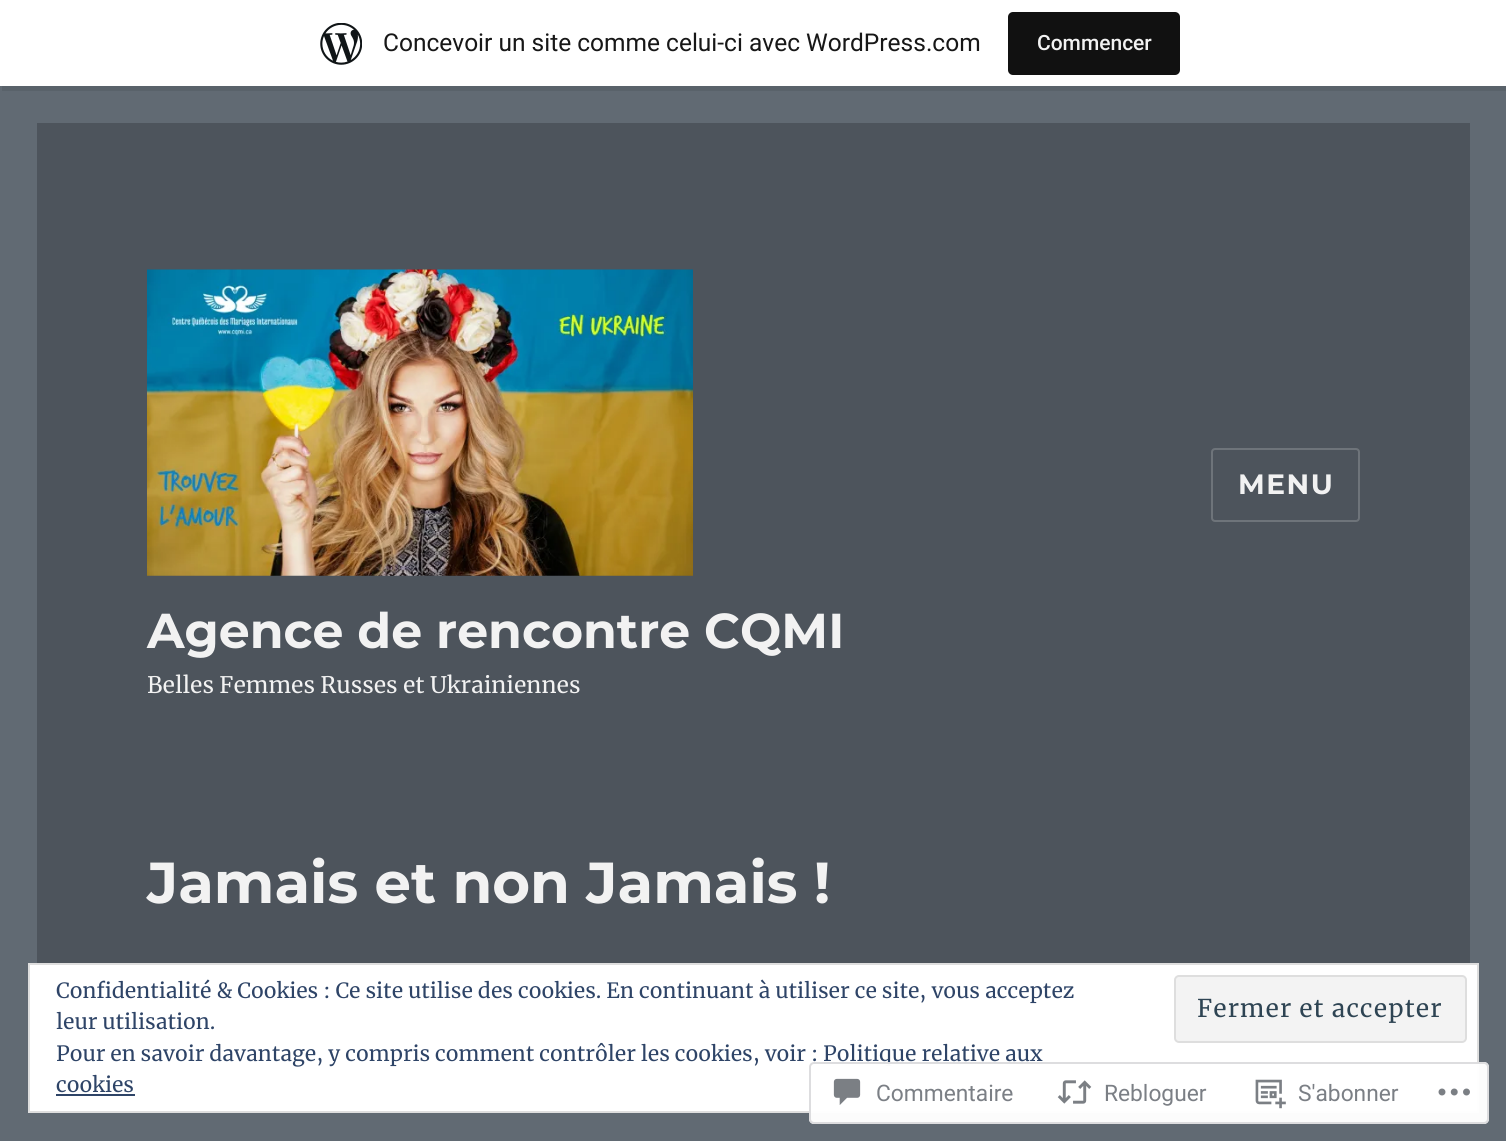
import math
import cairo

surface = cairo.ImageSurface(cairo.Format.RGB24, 1506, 1141)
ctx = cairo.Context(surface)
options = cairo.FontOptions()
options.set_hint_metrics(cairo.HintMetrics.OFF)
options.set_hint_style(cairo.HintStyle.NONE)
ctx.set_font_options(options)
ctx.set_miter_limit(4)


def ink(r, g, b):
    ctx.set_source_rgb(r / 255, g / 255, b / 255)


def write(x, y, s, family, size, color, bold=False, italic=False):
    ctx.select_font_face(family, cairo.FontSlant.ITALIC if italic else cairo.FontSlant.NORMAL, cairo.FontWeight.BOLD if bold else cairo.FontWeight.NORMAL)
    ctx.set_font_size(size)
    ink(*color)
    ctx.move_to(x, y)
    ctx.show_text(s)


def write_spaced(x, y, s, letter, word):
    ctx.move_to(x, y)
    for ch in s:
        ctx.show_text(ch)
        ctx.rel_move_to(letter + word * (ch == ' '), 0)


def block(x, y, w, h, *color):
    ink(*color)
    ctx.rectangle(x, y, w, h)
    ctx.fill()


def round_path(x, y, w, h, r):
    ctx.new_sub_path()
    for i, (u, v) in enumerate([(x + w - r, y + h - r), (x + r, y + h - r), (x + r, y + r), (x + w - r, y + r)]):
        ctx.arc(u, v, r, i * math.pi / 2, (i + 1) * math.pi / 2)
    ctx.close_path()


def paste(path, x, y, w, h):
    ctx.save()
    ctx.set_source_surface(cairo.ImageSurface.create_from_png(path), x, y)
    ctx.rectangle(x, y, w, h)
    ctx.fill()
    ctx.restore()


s1 = dict(family="Roboto", size=24.5, color=(23, 23, 23))
s2 = dict(family="Roboto Medium", size=21, color=(242, 242, 242))
s3 = dict(family="Montserrat Thin", size=49, color=(242, 242, 242))
s4 = dict(family="Merriweather", size=22.75, color=(242, 242, 242))
s5 = dict(family="Montserrat Thin", size=57.75, color=(242, 242, 242))
s6 = dict(family="Merriweather", size=21, color=(46, 68, 103))
s7 = dict(family="Roboto", size=22.75, color=(123, 127, 133))

ink(97, 106, 115)
ctx.paint()
ctx.set_source_rgba(0, 0, 0, 0.08)
ctx.new_path()
ctx.move_to(2, 86)
ctx.line_to(2, 91)
ctx.line_to(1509, 91)
ctx.line_to(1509, 5)
ctx.line_to(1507, 5)
ctx.line_to(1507, 86)
ctx.close_path()
ctx.fill()
block(0, 0, 1506, 86, 255, 255, 255)
paste("pic1.png", 320, 23, 42, 42)
write(383, 51, "Concevoir un site comme celui-ci avec WordPress.com", **s1)
ink(17, 17, 17)
round_path(1008, 12, 172, 63, 5)
ctx.fill()
write(1037, 50, "Commencer", **s2)
block(37, 123, 1433, 840, 77, 84, 92)
round_path(1212, 449, 147, 72, 3)
ink(110, 116, 122)
ctx.stroke()
ctx.select_font_face("Montserrat Thin")
ctx.set_font_size(28)
ink(242, 242, 242)
write_spaced(1238, 494, "MENU", 1.5, 0)
paste("pic2.png", 147, 269, 546, 307)
write(147, 648, "Agence de rencontre CQMI", **s3)
write(147, 693, "Belles Femmes Russes et Ukrainiennes", **s4)
write(147, 903, "Jamais et non Jamais !", **s5)
ink(255, 255, 255)
ctx.rectangle(29, 964, 1449, 148)
ctx.fill_preserve()
ink(222, 222, 222)
ctx.stroke()
write(56, 998, "Confidentialité & Cookies : Ce site utilise des cookies. En continuant à utiliser ce site, vous acceptez", **s6)
write(56, 1029, "leur utilisation.", **s6)
ink(243, 243, 243)
round_path(1175, 976, 291, 66, 4)
ctx.fill_preserve()
ink(222, 222, 222)
ctx.stroke()
ctx.set_font_size(24.5)
ink(46, 68, 83)
write_spaced(1197, 1017, "Fermer et accepter", 1.1, 0)
write(56, 1061, "Pour en savoir davantage, y compris comment contrôler les cookies, voir :", **s6)
block(823, 1062, 220, 2, 46, 68, 103)
write(823, 1061, "Politique relative aux", **s6)
write(56, 1092, "cookies", **s6)
block(56, 1094, 79, 2, 46, 68, 103)
ctx.set_source_rgba(1, 1, 1, 0.98)
round_path(809, 1062, 680, 62, 5)
ctx.fill()
round_path(810, 1063, 678, 60, 4)
ctx.set_source_rgba(0.863, 0.863, 0.871, 0.98)
ctx.stroke()
paste("pic3.png", 833, 1078, 28, 27)
write(876, 1101, "Commentaire", **s7)
paste("pic4.png", 1057, 1080, 35, 24)
write(1104, 1101, "Rebloguer", **s7)
paste("pic5.png", 1255, 1079, 31, 30)
write(1298, 1101, "S'abonner", **s7)
paste("pic6.png", 1438, 1088, 32, 8)
surface.write_to_png("screenshot.png")
